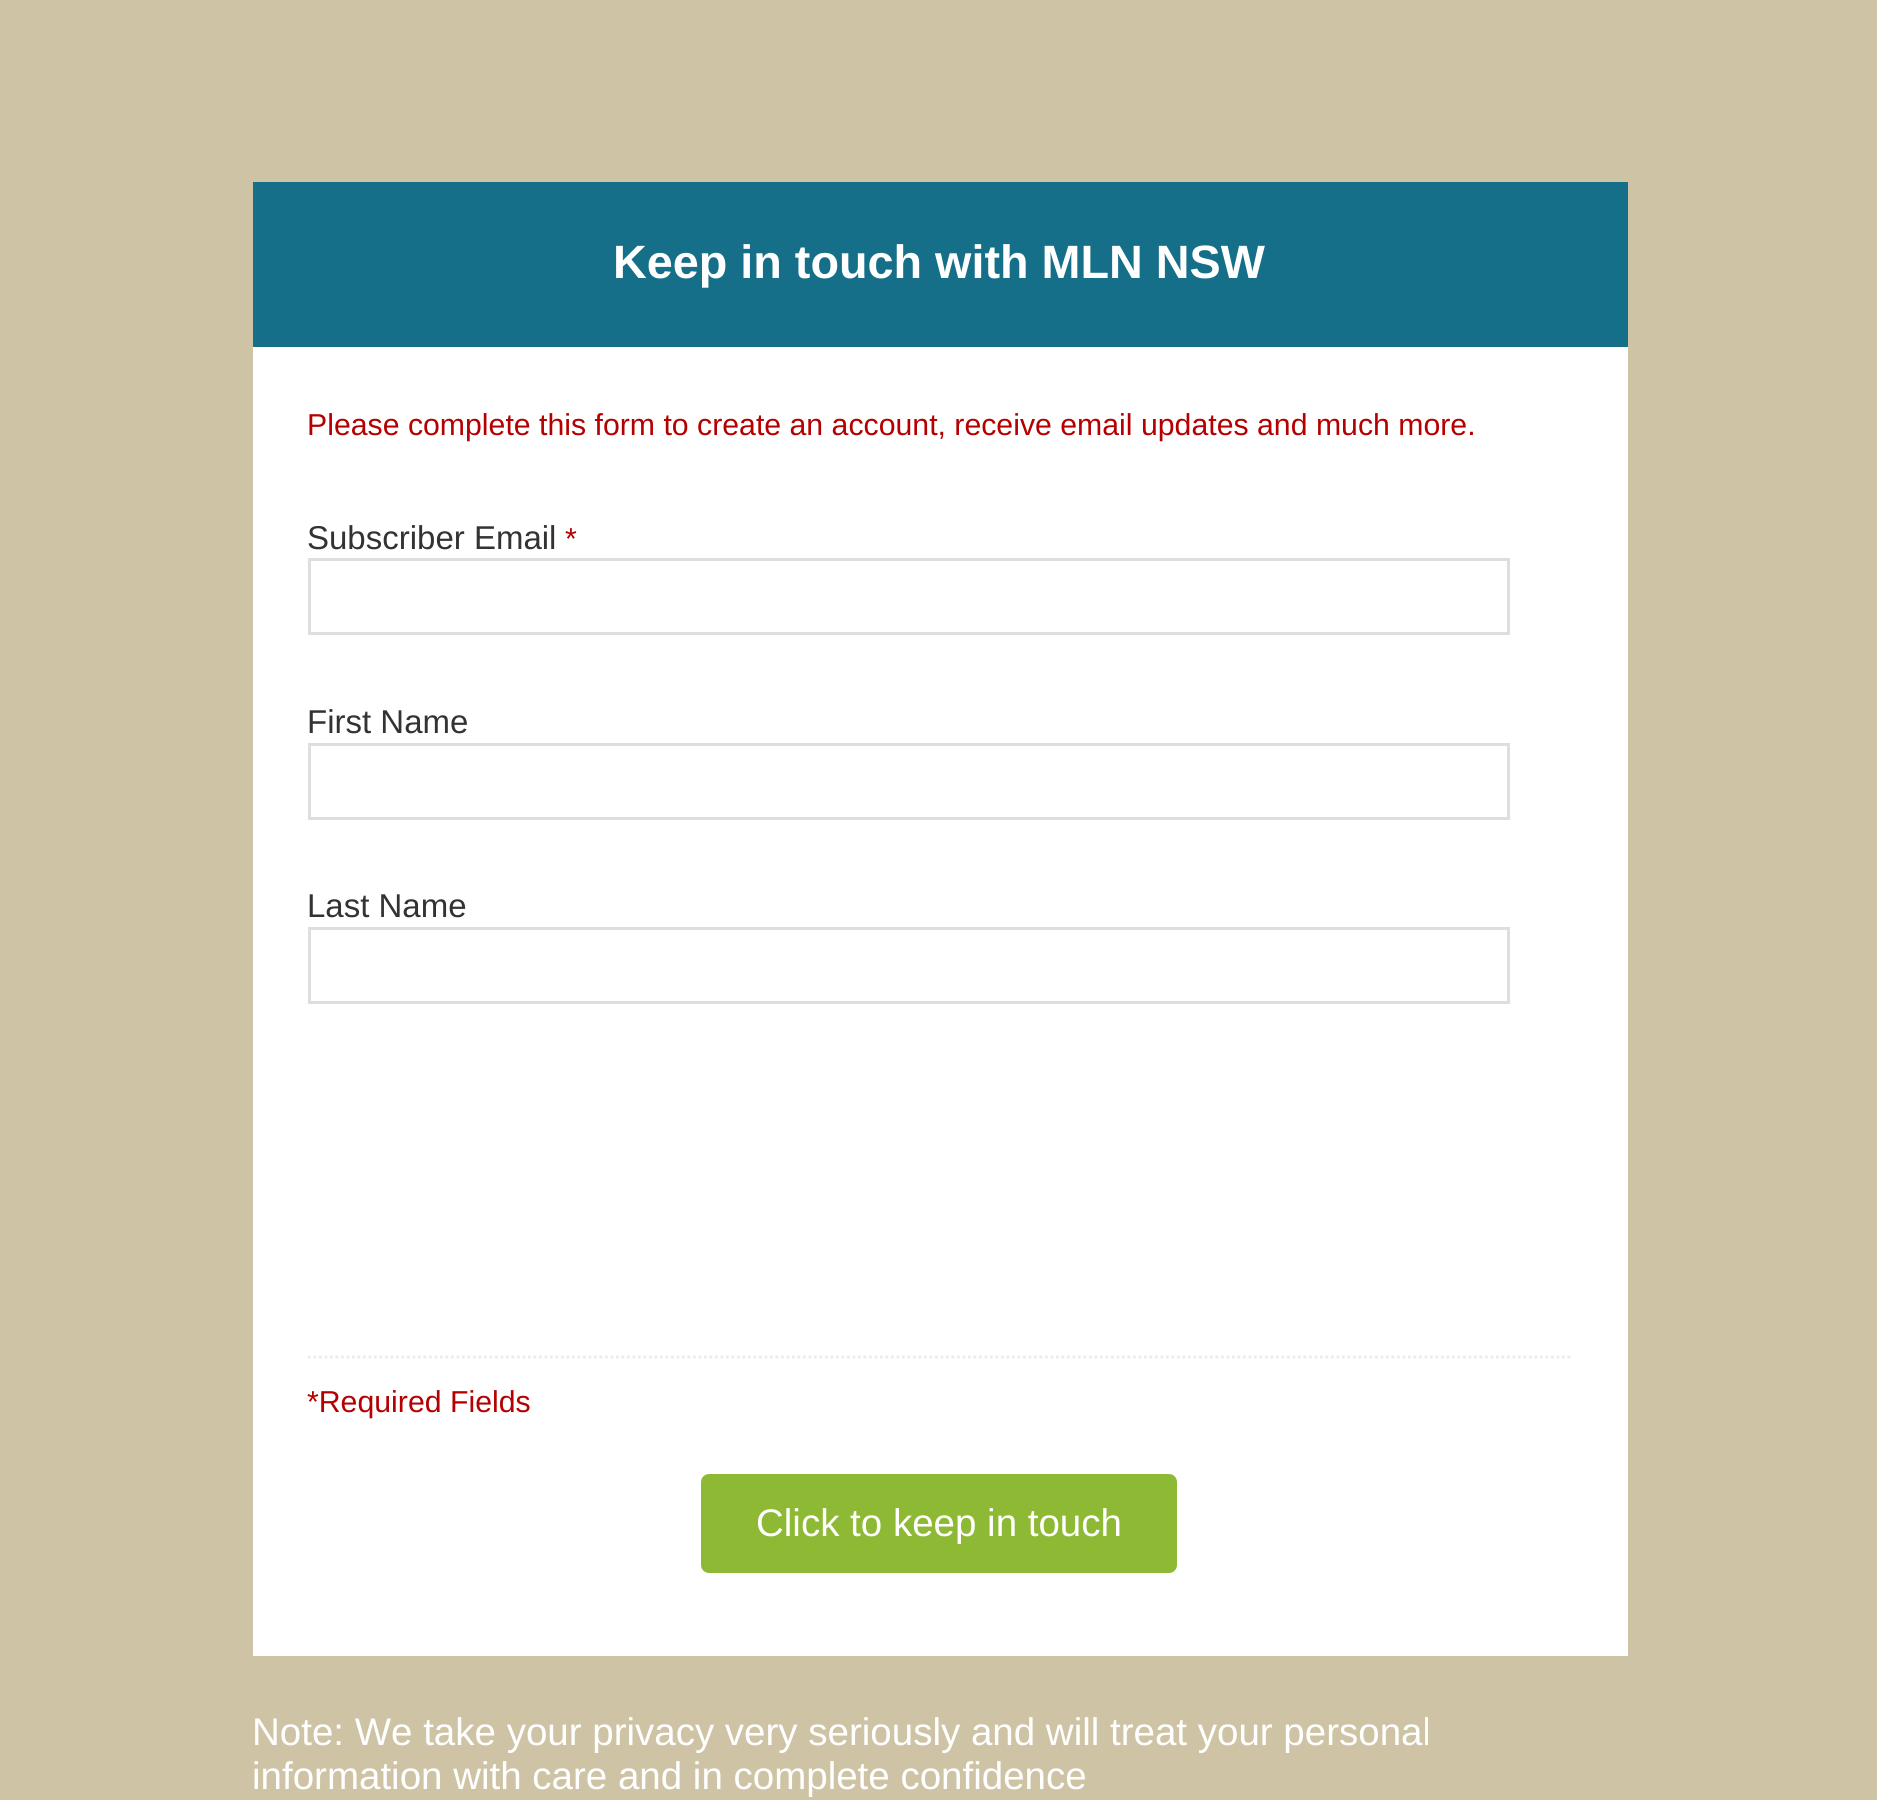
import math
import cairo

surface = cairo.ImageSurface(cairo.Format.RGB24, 1877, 1800)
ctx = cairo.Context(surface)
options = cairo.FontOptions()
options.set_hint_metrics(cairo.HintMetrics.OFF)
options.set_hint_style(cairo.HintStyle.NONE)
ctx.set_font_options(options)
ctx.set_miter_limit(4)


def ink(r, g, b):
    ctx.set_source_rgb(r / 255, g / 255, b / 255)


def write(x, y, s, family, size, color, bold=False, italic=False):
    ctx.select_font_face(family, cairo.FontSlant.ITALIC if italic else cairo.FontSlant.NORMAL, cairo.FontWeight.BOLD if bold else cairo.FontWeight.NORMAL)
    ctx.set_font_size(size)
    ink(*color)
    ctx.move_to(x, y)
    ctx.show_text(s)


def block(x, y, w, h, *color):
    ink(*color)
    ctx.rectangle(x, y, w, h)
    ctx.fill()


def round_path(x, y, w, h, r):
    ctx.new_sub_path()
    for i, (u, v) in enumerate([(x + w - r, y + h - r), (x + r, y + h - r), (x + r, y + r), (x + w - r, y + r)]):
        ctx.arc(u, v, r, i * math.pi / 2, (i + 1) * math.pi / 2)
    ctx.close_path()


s1 = dict(family="Liberation Sans", size=46.75, color=(255, 255, 255), bold=True)
s2 = dict(family="Liberation Sans", size=30.25, color=(180, 0, 0))
s3 = dict(family="Liberation Sans", size=33, color=(51, 51, 51))
s4 = dict(family="Liberation Sans", size=38.5, color=(255, 255, 255))

ink(206, 196, 165)
ctx.paint()
block(253, 182, 1375, 165, 21, 111, 137)
write(613, 278, "Keep in touch with MLN NSW", **s1)
block(253, 347, 1375, 1309, 255, 255, 255)
write(307, 435, "Please complete this form to create an account, receive email updates and much more.", **s2)
write(307, 549, "Subscriber Email", **s3)
write(565, 549, "*", **s2)
ctx.rectangle(309.5, 559.5, 1199, 74)
ink(222, 222, 222)
ctx.set_line_width(3)
ctx.stroke()
write(307, 733, "First Name", **s3)
ctx.rectangle(309.5, 744.5, 1199, 74)
ink(222, 222, 222)
ctx.stroke()
write(307, 917, "Last Name", **s3)
ctx.rectangle(309.5, 928.5, 1199, 74)
ink(222, 222, 222)
ctx.stroke()
ctx.new_path()
ctx.move_to(308, 1357)
ctx.line_to(1573, 1357)
ink(235, 235, 235)
ctx.set_line_width(2.8)
ctx.set_dash([2.75, 2.75])
ctx.stroke()
write(307, 1412, "*Required Fields", **s2)
ink(142, 185, 52)
round_path(708, 1481, 462, 85, 1)
ctx.fill_preserve()
ctx.set_line_width(14)
ctx.set_dash([])
ctx.stroke()
write(756, 1536, "Click to keep in touch", **s4)
write(252, 1745, "Note: We take your privacy very seriously and will treat your personal", **s4)
write(252, 1789, "information with care and in complete confidence", **s4)
surface.write_to_png("screenshot.png")
